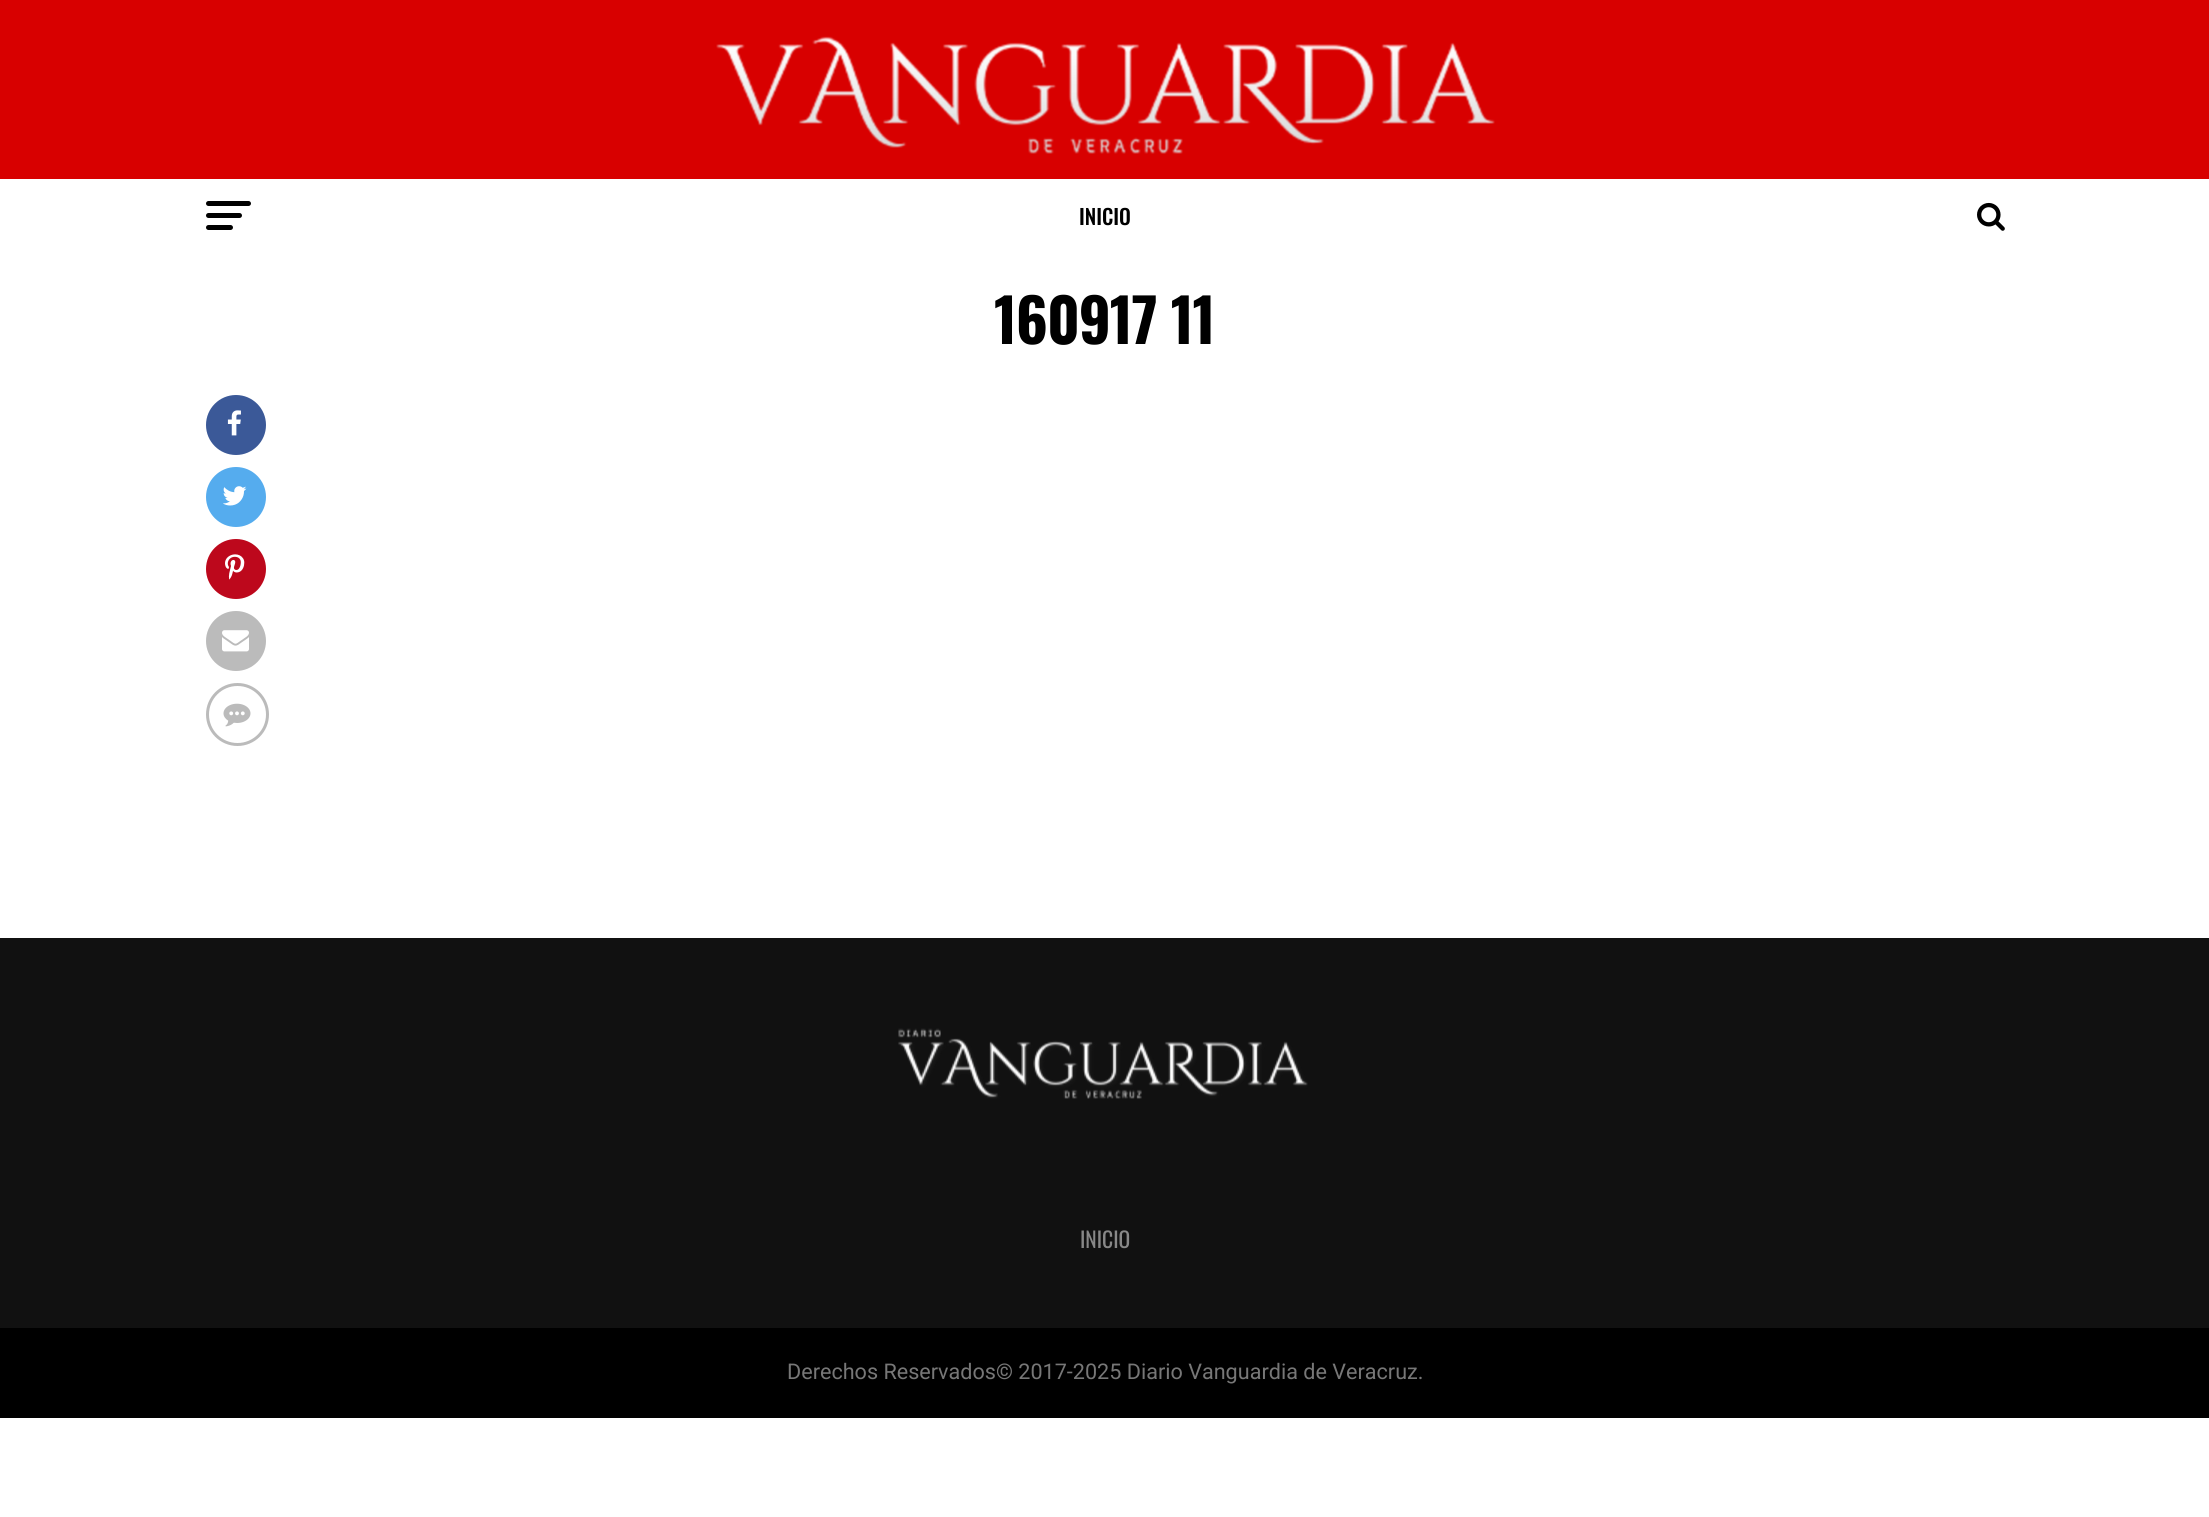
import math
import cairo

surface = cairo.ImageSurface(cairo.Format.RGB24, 2209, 1517)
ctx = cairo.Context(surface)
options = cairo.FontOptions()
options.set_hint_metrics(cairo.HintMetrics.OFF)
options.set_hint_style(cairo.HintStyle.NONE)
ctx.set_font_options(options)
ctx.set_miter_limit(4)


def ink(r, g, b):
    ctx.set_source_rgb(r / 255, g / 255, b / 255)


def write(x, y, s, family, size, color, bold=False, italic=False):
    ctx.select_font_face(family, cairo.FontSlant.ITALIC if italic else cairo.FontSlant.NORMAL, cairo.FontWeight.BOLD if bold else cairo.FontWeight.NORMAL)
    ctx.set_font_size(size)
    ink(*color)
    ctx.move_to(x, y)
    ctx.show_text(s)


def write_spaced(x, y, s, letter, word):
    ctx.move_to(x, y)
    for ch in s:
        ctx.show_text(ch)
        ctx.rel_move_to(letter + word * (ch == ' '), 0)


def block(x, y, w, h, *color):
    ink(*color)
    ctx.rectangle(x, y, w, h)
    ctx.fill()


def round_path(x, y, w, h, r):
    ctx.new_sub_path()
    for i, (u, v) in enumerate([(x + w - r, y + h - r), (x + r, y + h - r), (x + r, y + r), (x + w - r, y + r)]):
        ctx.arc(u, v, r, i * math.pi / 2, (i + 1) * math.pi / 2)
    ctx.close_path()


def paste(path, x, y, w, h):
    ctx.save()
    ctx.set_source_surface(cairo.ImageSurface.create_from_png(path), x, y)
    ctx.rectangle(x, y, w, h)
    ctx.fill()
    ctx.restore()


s1 = dict(family="Oswald Medium", size=21, color=(0, 0, 0))
s2 = dict(family="Oswald", size=21.6, color=(136, 136, 136))
s3 = dict(family="Roboto", size=21.6, color=(119, 119, 119))

ink(255, 255, 255)
ctx.paint()
block(0, 0, 2209, 179, 216, 0, 0)
paste("pic1.png", 716, 36, 779, 118)
ink(0, 0, 0)
round_path(206, 201, 45, 5, 2.5)
ctx.fill()
round_path(206, 213, 36, 5, 2.5)
ctx.fill()
round_path(206, 225, 27, 5, 2.5)
ctx.fill()
write(1079, 225, "INICIO", **s1)
paste("pic2.png", 1977, 202, 28, 29)
ctx.select_font_face("Oswald", cairo.FontSlant.NORMAL, cairo.FontWeight.BOLD)
ctx.set_font_size(60)
write_spaced(994, 344, "160917 11", -1.25, 0)
ink(59, 89, 152)
ctx.new_path()
ctx.arc(236, 425, 30, 0, 2 * math.pi)
ctx.fill()
paste("pic3.png", 227, 410, 14, 26)
ink(85, 172, 238)
ctx.arc(236, 497, 30, 0, 2 * math.pi)
ctx.fill()
paste("pic4.png", 223, 486, 24, 20)
ink(189, 8, 28)
ctx.arc(236, 569, 30, 0, 2 * math.pi)
ctx.fill()
paste("pic5.png", 225, 554, 20, 26)
ink(187, 187, 187)
ctx.arc(236, 641, 30, 0, 2 * math.pi)
ctx.fill()
paste("pic6.png", 222, 630, 27, 22)
ctx.arc(237.5, 714.5, 30, 0, 2 * math.pi)
ctx.set_line_width(3)
ctx.stroke()
paste("pic7.png", 223, 703, 28, 24)
block(0, 938, 2209, 390, 17, 17, 17)
paste("pic8.png", 898, 1028, 410, 71)
write(1080, 1248, "INICIO", **s2)
block(0, 1328, 2209, 90, 0, 0, 0)
write(787, 1379, "Derechos Reservados© 2017-2025 Diario Vanguardia de Veracruz.", **s3)
surface.write_to_png("screenshot.png")
